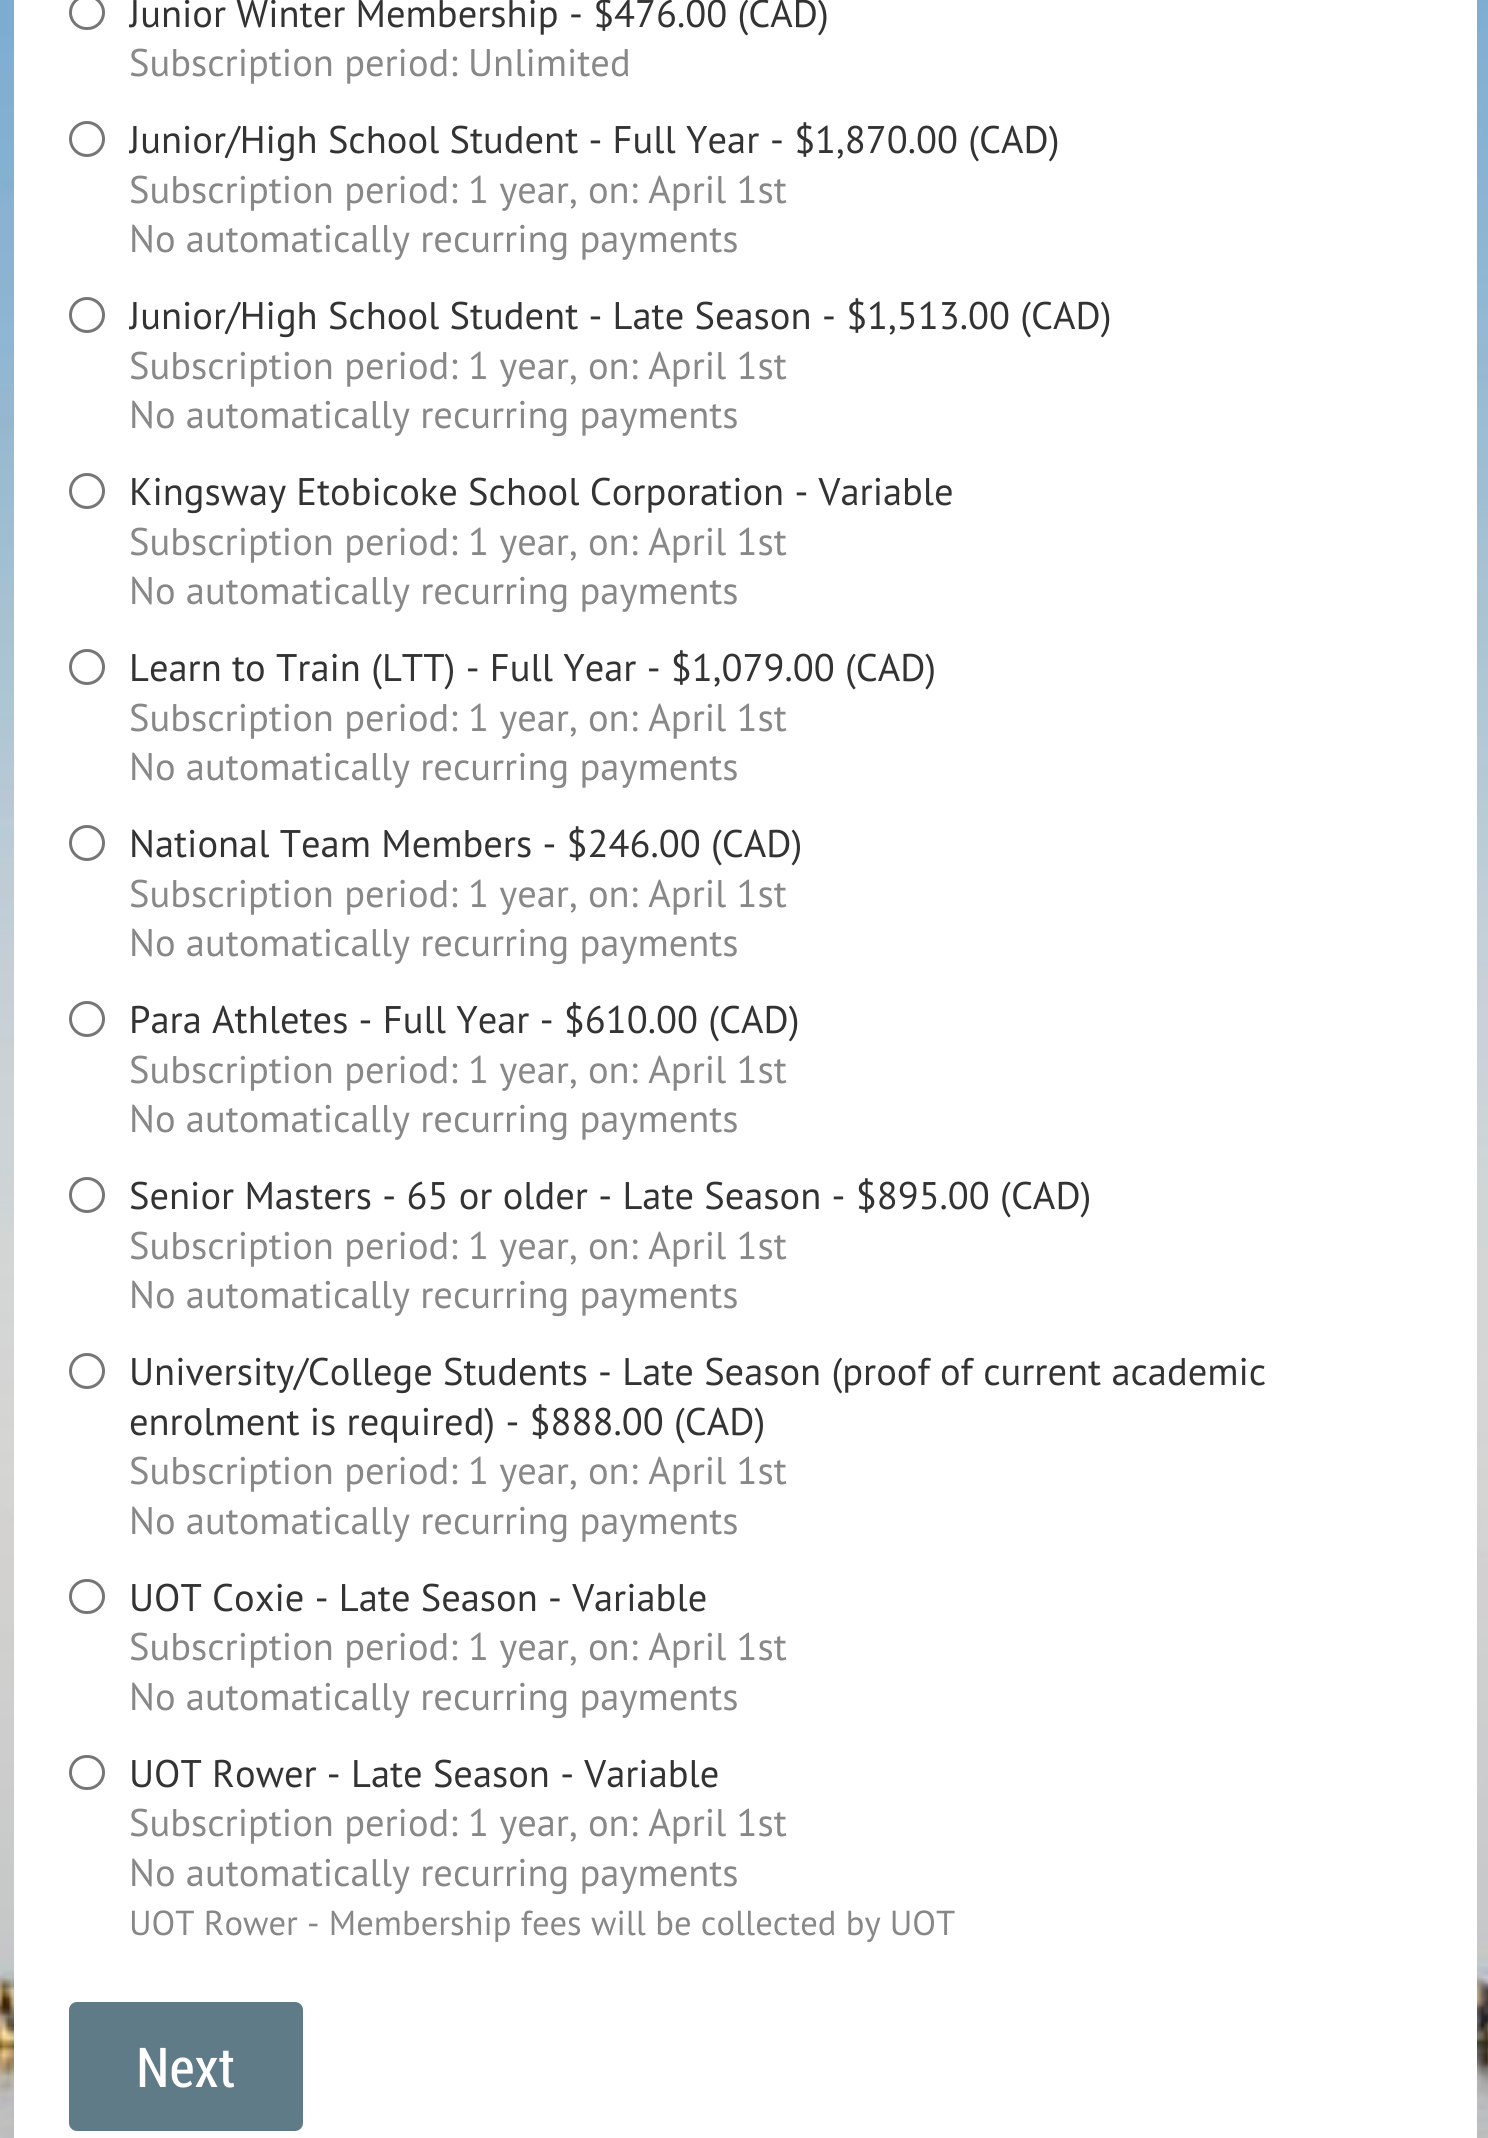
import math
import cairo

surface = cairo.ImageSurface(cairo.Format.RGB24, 1488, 2138)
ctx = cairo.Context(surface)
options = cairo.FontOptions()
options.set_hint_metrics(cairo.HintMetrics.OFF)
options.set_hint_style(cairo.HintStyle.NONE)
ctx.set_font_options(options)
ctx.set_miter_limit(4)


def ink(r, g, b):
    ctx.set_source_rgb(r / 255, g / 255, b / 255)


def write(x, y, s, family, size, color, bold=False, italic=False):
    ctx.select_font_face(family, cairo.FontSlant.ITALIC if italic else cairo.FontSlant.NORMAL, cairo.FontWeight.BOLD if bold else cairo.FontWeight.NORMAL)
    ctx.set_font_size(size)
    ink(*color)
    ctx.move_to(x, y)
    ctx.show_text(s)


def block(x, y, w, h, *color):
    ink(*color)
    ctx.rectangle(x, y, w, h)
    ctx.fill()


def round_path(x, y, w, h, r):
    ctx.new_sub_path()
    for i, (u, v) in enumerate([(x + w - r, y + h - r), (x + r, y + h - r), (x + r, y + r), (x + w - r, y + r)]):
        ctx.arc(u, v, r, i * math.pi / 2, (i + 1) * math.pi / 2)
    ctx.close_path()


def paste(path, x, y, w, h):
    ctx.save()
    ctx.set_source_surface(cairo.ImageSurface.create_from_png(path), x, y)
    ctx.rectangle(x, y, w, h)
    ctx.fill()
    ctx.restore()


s1 = dict(family="PT Sans", size=38.5, color=(51, 51, 51))
s2 = dict(family="PT Sans", size=38.5, color=(136, 136, 136))
s3 = dict(family="PT Sans", size=34.65, color=(136, 136, 136))
s4 = dict(family="Roboto Condensed", size=55, color=(255, 255, 255))

ink(255, 255, 255)
ctx.paint()
paste("pic1.png", 0, 0, 1488, 2138)
block(14, 0, 1463, 2138, 255, 255, 255)
round_path(70.5, -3.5, 33, 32, 16)
ink(118, 118, 118)
ctx.set_line_width(3)
ctx.stroke()
ctx.save()
ctx.rectangle(129, 0, 1293, 88)
ctx.clip()
write(129, 27, "Junior Winter Membership", **s1)
ctx.restore()
write(569, 27, "- $476.00 (CAD)", **s1)
write(129, 76, "Subscription period: Unlimited", **s2)
ctx.new_path()
ctx.arc(87, 139, 16.5, 0, 2 * math.pi)
ink(118, 118, 118)
ctx.stroke()
ctx.save()
ctx.rectangle(129, 116, 1293, 148)
ctx.clip()
write(129, 153, "Junior/High School Student - Full Year", **s1)
ctx.restore()
write(770, 153, "- $1,870.00 (CAD)", **s1)
write(129, 203, "Subscription period: 1 year, on: April 1st", **s2)
write(129, 252, "No automatically recurring payments", **s2)
ctx.new_path()
ctx.arc(87, 315, 16.5, 0, 2 * math.pi)
ink(118, 118, 118)
ctx.stroke()
ctx.save()
ctx.rectangle(129, 292, 1293, 148)
ctx.clip()
write(129, 329, "Junior/High School Student - Late Season", **s1)
ctx.restore()
write(822, 329, "- $1,513.00 (CAD)", **s1)
write(129, 379, "Subscription period: 1 year, on: April 1st", **s2)
write(129, 428, "No automatically recurring payments", **s2)
ctx.new_path()
ctx.arc(87, 491, 16.5, 0, 2 * math.pi)
ink(118, 118, 118)
ctx.stroke()
write(129, 505, "Kingsway Etobicoke School Corporation - Variable", **s1)
write(129, 555, "Subscription period: 1 year, on: April 1st", **s2)
write(129, 604, "No automatically recurring payments", **s2)
ctx.new_path()
ctx.arc(87, 667, 16.5, 0, 2 * math.pi)
ink(118, 118, 118)
ctx.stroke()
write(129, 681, "Learn to Train (LTT) - Full Year - $1,079.00 (CAD)", **s1)
write(129, 731, "Subscription period: 1 year, on: April 1st", **s2)
write(129, 780, "No automatically recurring payments", **s2)
ctx.new_path()
ctx.arc(87, 843, 16.5, 0, 2 * math.pi)
ink(118, 118, 118)
ctx.stroke()
write(129, 857, "National Team Members - $246.00 (CAD)", **s1)
write(129, 907, "Subscription period: 1 year, on: April 1st", **s2)
write(129, 956, "No automatically recurring payments", **s2)
ctx.new_path()
ctx.arc(87, 1019, 16.5, 0, 2 * math.pi)
ink(118, 118, 118)
ctx.stroke()
write(129, 1033, "Para Athletes - Full Year - $610.00 (CAD)", **s1)
write(129, 1083, "Subscription period: 1 year, on: April 1st", **s2)
write(129, 1132, "No automatically recurring payments", **s2)
ctx.new_path()
ctx.arc(87, 1195, 16.5, 0, 2 * math.pi)
ink(118, 118, 118)
ctx.stroke()
write(129, 1209, "Senior Masters - 65 or older - Late Season - $895.00 (CAD)", **s1)
write(129, 1259, "Subscription period: 1 year, on: April 1st", **s2)
write(129, 1308, "No automatically recurring payments", **s2)
ctx.new_path()
ctx.arc(87, 1371, 16.5, 0, 2 * math.pi)
ink(118, 118, 118)
ctx.stroke()
write(129, 1385, "University/College Students - Late Season (proof of current academic", **s1)
write(129, 1435, "enrolment is required) - $888.00 (CAD)", **s1)
write(129, 1484, "Subscription period: 1 year, on: April 1st", **s2)
write(129, 1534, "No automatically recurring payments", **s2)
round_path(70.5, 1580.5, 33, 32, 16)
ink(118, 118, 118)
ctx.stroke()
write(129, 1611, "UOT Coxie - Late Season - Variable", **s1)
write(129, 1660, "Subscription period: 1 year, on: April 1st", **s2)
write(129, 1710, "No automatically recurring payments", **s2)
round_path(70.5, 1756.5, 33, 32, 16)
ink(118, 118, 118)
ctx.stroke()
write(129, 1787, "UOT Rower - Late Season - Variable", **s1)
write(129, 1836, "Subscription period: 1 year, on: April 1st", **s2)
write(129, 1886, "No automatically recurring payments", **s2)
write(129, 1935, "UOT Rower - Membership fees will be collected by UOT", **s3)
ink(95, 123, 135)
round_path(69, 2002, 234, 129, 8)
ctx.fill()
write(136, 2087, "Next", **s4)
surface.write_to_png("screenshot.png")
